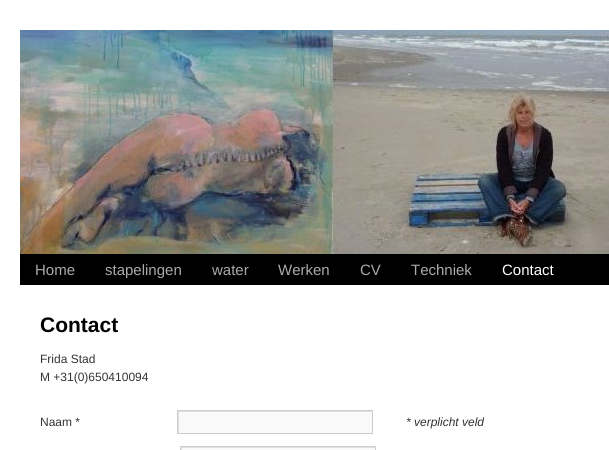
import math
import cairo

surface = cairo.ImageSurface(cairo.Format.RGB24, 609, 450)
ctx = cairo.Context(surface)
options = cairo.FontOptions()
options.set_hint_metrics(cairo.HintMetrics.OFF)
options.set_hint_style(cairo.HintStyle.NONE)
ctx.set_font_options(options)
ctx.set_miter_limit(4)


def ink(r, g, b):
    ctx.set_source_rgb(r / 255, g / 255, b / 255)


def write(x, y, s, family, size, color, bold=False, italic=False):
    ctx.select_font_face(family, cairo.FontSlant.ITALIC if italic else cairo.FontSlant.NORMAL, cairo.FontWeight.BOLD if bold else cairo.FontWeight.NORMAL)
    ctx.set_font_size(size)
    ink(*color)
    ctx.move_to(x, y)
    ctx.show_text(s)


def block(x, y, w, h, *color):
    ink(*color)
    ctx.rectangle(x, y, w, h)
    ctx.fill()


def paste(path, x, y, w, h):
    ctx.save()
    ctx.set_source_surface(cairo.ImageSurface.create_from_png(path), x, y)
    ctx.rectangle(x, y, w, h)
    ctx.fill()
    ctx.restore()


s1 = dict(family="Liberation Sans", size=15, color=(170, 170, 170))
s2 = dict(family="Liberation Sans", size=15, color=(255, 255, 255))
s3 = dict(family="Liberation Sans", size=21, color=(0, 0, 0), bold=True)
s4 = dict(family="Liberation Sans", size=12, color=(51, 51, 51))
s5 = dict(family="Liberation Sans", size=12, color=(51, 51, 51), italic=True)

ink(255, 255, 255)
ctx.paint()
block(20, 254, 589, 31, 0, 0, 0)
paste("pic1.png", 20, 30, 589, 224)
write(35, 275, "Home", **s1)
write(105, 275, "stapelingen", **s1)
write(212, 275, "water", **s1)
write(278, 275, "Werken", **s1)
write(360, 275, "CV", **s1)
write(411, 275, "Techniek", **s1)
write(502, 275, "Contact", **s2)
write(40, 332, "Contact", **s3)
write(40, 363, "Frida Stad", **s4)
write(40, 381, "M +31(0)650410094", **s4)
write(40, 426, "Naam *", **s4)
block(179, 412, 193, 21, 249, 249, 249)
ctx.save()
ctx.rectangle(178, 411, 194, 22)
ctx.clip()
ink(224, 224, 224)
ctx.set_fill_rule(cairo.FillRule.EVEN_ODD)
ctx.new_path()
ctx.move_to(79, 312)
ctx.line_to(471, 312)
ctx.line_to(471, 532)
ctx.line_to(79, 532)
ctx.close_path()
ctx.move_to(179, 412)
ctx.line_to(373, 412)
ctx.line_to(373, 434)
ctx.line_to(179, 434)
ctx.close_path()
ctx.fill()
ctx.restore()
ctx.rectangle(177.5, 410.5, 195, 23)
ink(204, 204, 204)
ctx.set_line_width(1)
ctx.stroke()
write(406, 426, "* verplicht veld", **s5)
block(180, 448, 196, 2, 249, 249, 249)
ctx.save()
ctx.rectangle(181, 447, 194, 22)
ctx.clip()
ink(224, 224, 224)
ctx.set_fill_rule(cairo.FillRule.EVEN_ODD)
ctx.new_path()
ctx.move_to(82, 348)
ctx.line_to(474, 348)
ctx.line_to(474, 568)
ctx.line_to(82, 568)
ctx.close_path()
ctx.move_to(182, 448)
ctx.line_to(376, 448)
ctx.line_to(376, 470)
ctx.line_to(182, 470)
ctx.close_path()
ctx.fill()
ctx.restore()
ctx.rectangle(180.5, 446.5, 195, 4)
ink(204, 204, 204)
ctx.stroke()
surface.write_to_png("screenshot.png")
